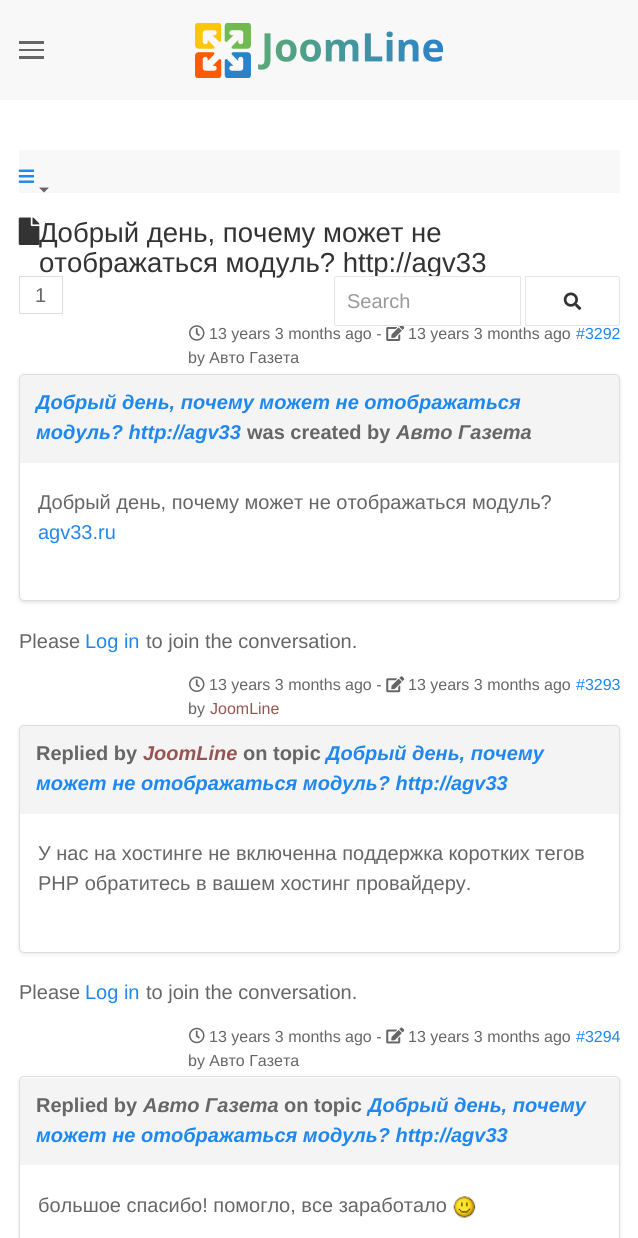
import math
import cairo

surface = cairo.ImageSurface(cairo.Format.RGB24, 638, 1238)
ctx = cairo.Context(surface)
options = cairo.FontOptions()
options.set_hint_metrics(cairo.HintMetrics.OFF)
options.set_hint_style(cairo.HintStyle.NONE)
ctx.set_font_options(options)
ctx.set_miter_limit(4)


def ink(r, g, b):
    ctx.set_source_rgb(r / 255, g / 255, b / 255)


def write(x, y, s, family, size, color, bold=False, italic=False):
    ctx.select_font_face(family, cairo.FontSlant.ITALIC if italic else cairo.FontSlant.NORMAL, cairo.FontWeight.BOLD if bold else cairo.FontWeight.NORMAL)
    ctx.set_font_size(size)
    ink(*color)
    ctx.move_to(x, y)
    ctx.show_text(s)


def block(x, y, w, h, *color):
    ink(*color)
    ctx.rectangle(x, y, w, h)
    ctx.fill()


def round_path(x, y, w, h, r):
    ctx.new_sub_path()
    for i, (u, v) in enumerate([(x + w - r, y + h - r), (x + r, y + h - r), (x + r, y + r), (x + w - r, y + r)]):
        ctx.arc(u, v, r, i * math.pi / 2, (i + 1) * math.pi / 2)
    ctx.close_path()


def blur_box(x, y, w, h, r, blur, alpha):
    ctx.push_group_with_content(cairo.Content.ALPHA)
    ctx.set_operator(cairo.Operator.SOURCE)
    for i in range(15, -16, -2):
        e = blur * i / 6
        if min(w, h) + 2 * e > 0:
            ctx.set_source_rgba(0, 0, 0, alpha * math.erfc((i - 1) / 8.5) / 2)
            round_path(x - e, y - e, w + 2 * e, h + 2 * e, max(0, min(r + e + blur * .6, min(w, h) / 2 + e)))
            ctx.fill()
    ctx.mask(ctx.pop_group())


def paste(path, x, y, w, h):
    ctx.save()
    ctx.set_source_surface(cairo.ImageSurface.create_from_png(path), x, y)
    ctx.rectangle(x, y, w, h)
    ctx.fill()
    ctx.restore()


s1 = dict(family="Liberation Sans", size=27.5, color=(51, 51, 51))
s2 = dict(family="Liberation Sans", size=20, color=(102, 102, 102))
s3 = dict(family="Liberation Sans", size=20, color=(153, 153, 153))
s4 = dict(family="Liberation Sans", size=16, color=(102, 102, 102))
s5 = dict(family="Liberation Sans", size=16, color=(30, 135, 240))
s6 = dict(family="Liberation Sans", size=20, color=(30, 135, 240), bold=True, italic=True)
s7 = dict(family="Liberation Sans", size=20, color=(102, 102, 102), bold=True)
s8 = dict(family="Liberation Sans", size=20, color=(102, 102, 102), bold=True, italic=True)
s9 = dict(family="Liberation Sans", size=20, color=(30, 135, 240))
s10 = dict(family="Liberation Sans", size=16, color=(151, 84, 81))
s11 = dict(family="Liberation Sans", size=20, color=(151, 84, 81), bold=True, italic=True)

ink(255, 255, 255)
ctx.paint()
block(0, 0, 638, 100, 248, 248, 248)
block(19, 41, 25, 3, 102, 102, 102)
block(19, 49, 25, 2, 102, 102, 102)
block(19, 56, 25, 3, 102, 102, 102)
paste("pic1.png", 195, 23, 249, 55)
block(19, 150, 601, 43, 248, 248, 248)
paste("pic2.png", 18, 169, 17, 14)
ink(102, 102, 102)
ctx.new_path()
ctx.move_to(39, 187.5)
ctx.line_to(49, 187.5)
ctx.line_to(44, 192.5)
ctx.close_path()
ctx.fill()
write(39, 242, "Добрый день, почему может не", **s1)
paste("pic3.png", 18, 217, 22, 28)
ctx.rectangle(19.5, 276.5, 43, 37)
ink(221, 221, 221)
ctx.set_line_width(1)
ctx.stroke()
write(39, 272, "отображаться модуль? http://agv33", **s1)
write(35, 302, "1", **s2)
ink(255, 255, 255)
ctx.new_path()
ctx.move_to(336.5, 276.5)
ctx.line_to(520.5, 276.5)
ctx.line_to(520.5, 325.5)
ctx.line_to(336.5, 325.5)
ctx.curve_to(335.5, 325.5, 334.5, 324.5, 334.5, 323.5)
ctx.line_to(334.5, 278.5)
ctx.curve_to(334.5, 277.5, 335.5, 276.5, 336.5, 276.5)
ctx.close_path()
ctx.fill_preserve()
ink(229, 229, 229)
ctx.stroke()
write(347, 308, "Search", **s3)
ctx.new_path()
ctx.move_to(525.5, 276.5)
ctx.line_to(617.5, 276.5)
ctx.curve_to(618.5, 276.5, 619.5, 277.5, 619.5, 278.5)
ctx.line_to(619.5, 323.5)
ctx.curve_to(619.5, 324.5, 618.5, 325.5, 617.5, 325.5)
ctx.line_to(525.5, 325.5)
ctx.close_path()
ink(229, 229, 229)
ctx.stroke()
paste("pic4.png", 563, 292, 19, 18)
paste("pic5.png", 189, 325, 16, 16)
write(209, 339, "13 years 3 months ago -", **s4)
paste("pic6.png", 386, 326, 19, 15)
write(408, 339, "13 years 3 months ago", **s4)
write(576, 339, "#3292", **s5)
write(188, 363, "by Авто Газета", **s4)
ctx.save()
ctx.set_fill_rule(cairo.FillRule.EVEN_ODD)
ctx.new_path()
ctx.move_to(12, 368)
ctx.line_to(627, 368)
ctx.line_to(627, 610)
ctx.line_to(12, 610)
ctx.close_path()
ctx.move_to(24, 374)
ctx.line_to(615, 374)
ctx.curve_to(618, 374, 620, 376, 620, 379)
ctx.line_to(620, 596)
ctx.curve_to(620, 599, 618, 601, 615, 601)
ctx.line_to(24, 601)
ctx.curve_to(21, 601, 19, 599, 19, 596)
ctx.line_to(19, 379)
ctx.curve_to(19, 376, 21, 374, 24, 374)
ctx.close_path()
ctx.clip()
ink(0, 0, 0)
blur_box(19, 375, 601, 228, 5, 2, 0.1)
ctx.restore()
round_path(19.5, 374.5, 600, 226, 4.5)
ink(221, 221, 221)
ctx.stroke()
ctx.set_source_rgba(0.898, 0.898, 0.898, 0.4)
ctx.new_path()
ctx.move_to(24, 375)
ctx.line_to(615, 375)
ctx.curve_to(618, 375, 620, 377, 620, 380)
ctx.line_to(620, 463)
ctx.line_to(19, 463)
ctx.line_to(19, 380)
ctx.curve_to(19, 377, 21, 375, 24, 375)
ctx.close_path()
ctx.fill()
write(36, 409, "Добрый день, почему может не отображаться", **s6)
write(36, 439, "модуль? http://agv33", **s6)
write(247, 439, "was created by", **s7)
write(396, 439, "Авто Газета", **s8)
write(38, 509, "Добрый день, почему может не отображаться модуль?", **s2)
write(38, 539, "agv33.ru", **s9)
write(19, 648, "Please", **s2)
write(85, 648, "Log in", **s9)
write(146, 648, "to join the conversation.", **s2)
paste("pic7.png", 189, 676, 16, 16)
write(209, 690, "13 years 3 months ago -", **s4)
paste("pic8.png", 386, 676, 19, 17)
write(408, 690, "13 years 3 months ago", **s4)
write(576, 690, "#3293", **s5)
write(188, 714, "by", **s4)
write(210, 714, "JoomLine", **s10)
ctx.save()
ctx.set_fill_rule(cairo.FillRule.EVEN_ODD)
ctx.new_path()
ctx.move_to(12, 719)
ctx.line_to(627, 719)
ctx.line_to(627, 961)
ctx.line_to(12, 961)
ctx.close_path()
ctx.move_to(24, 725)
ctx.line_to(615, 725)
ctx.curve_to(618, 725, 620, 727, 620, 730)
ctx.line_to(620, 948)
ctx.curve_to(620, 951, 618, 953, 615, 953)
ctx.line_to(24, 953)
ctx.curve_to(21, 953, 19, 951, 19, 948)
ctx.line_to(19, 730)
ctx.curve_to(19, 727, 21, 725, 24, 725)
ctx.close_path()
ctx.clip()
ink(0, 0, 0)
blur_box(19, 726, 601, 228, 5, 2, 0.1)
ctx.restore()
round_path(19.5, 725.5, 600, 227, 4.5)
ink(221, 221, 221)
ctx.stroke()
ctx.set_source_rgba(0.898, 0.898, 0.898, 0.4)
ctx.new_path()
ctx.move_to(24, 726)
ctx.line_to(615, 726)
ctx.curve_to(618, 726, 620, 728, 620, 731)
ctx.line_to(620, 814)
ctx.line_to(19, 814)
ctx.line_to(19, 731)
ctx.curve_to(19, 728, 21, 726, 24, 726)
ctx.close_path()
ctx.fill()
write(36, 760, "Replied by", **s7)
write(143, 760, "JoomLine", **s11)
write(243, 760, "on topic", **s7)
write(326, 760, "Добрый день, почему", **s6)
write(36, 790, "может не отображаться модуль? http://agv33", **s6)
write(38, 860, "У нас на хостинге не включенна поддержка коротких тегов", **s2)
write(38, 890, "PHP обратитесь в вашем хостинг провайдеру.", **s2)
write(19, 999, "Please", **s2)
write(85, 999, "Log in", **s9)
write(146, 999, "to join the conversation.", **s2)
paste("pic9.png", 189, 1027, 16, 17)
write(209, 1042, "13 years 3 months ago -", **s4)
paste("pic10.png", 386, 1027, 19, 17)
write(408, 1042, "13 years 3 months ago", **s4)
write(576, 1042, "#3294", **s5)
write(188, 1066, "by Авто Газета", **s4)
ctx.save()
ctx.set_fill_rule(cairo.FillRule.EVEN_ODD)
ctx.new_path()
ctx.move_to(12, 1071)
ctx.line_to(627, 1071)
ctx.line_to(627, 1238)
ctx.line_to(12, 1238)
ctx.close_path()
ctx.move_to(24, 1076)
ctx.line_to(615, 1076)
ctx.curve_to(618, 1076, 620, 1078, 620, 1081)
ctx.line_to(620, 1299)
ctx.curve_to(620, 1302, 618, 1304, 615, 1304)
ctx.line_to(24, 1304)
ctx.curve_to(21, 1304, 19, 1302, 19, 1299)
ctx.line_to(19, 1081)
ctx.curve_to(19, 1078, 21, 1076, 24, 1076)
ctx.close_path()
ctx.clip()
ink(0, 0, 0)
blur_box(19, 1078, 601, 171, 5, 2, 0.1)
ctx.restore()
round_path(19.5, 1076.5, 600, 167, 4.5)
ink(221, 221, 221)
ctx.stroke()
ctx.set_source_rgba(0.898, 0.898, 0.898, 0.4)
ctx.new_path()
ctx.move_to(24, 1078)
ctx.line_to(615, 1078)
ctx.curve_to(618, 1078, 620, 1080, 620, 1083)
ctx.line_to(620, 1165)
ctx.line_to(19, 1165)
ctx.line_to(19, 1083)
ctx.curve_to(19, 1080, 21, 1078, 24, 1078)
ctx.close_path()
ctx.fill()
write(36, 1112, "Replied by", **s7)
write(143, 1112, "Авто Газета", **s8)
write(284, 1112, "on topic", **s7)
write(368, 1112, "Добрый день, почему", **s6)
write(36, 1142, "может не отображаться модуль? http://agv33", **s6)
write(38, 1212, "большое спасибо! помогло, все заработало", **s2)
paste("pic11.png", 453, 1196, 23, 22)
surface.write_to_png("screenshot.png")
